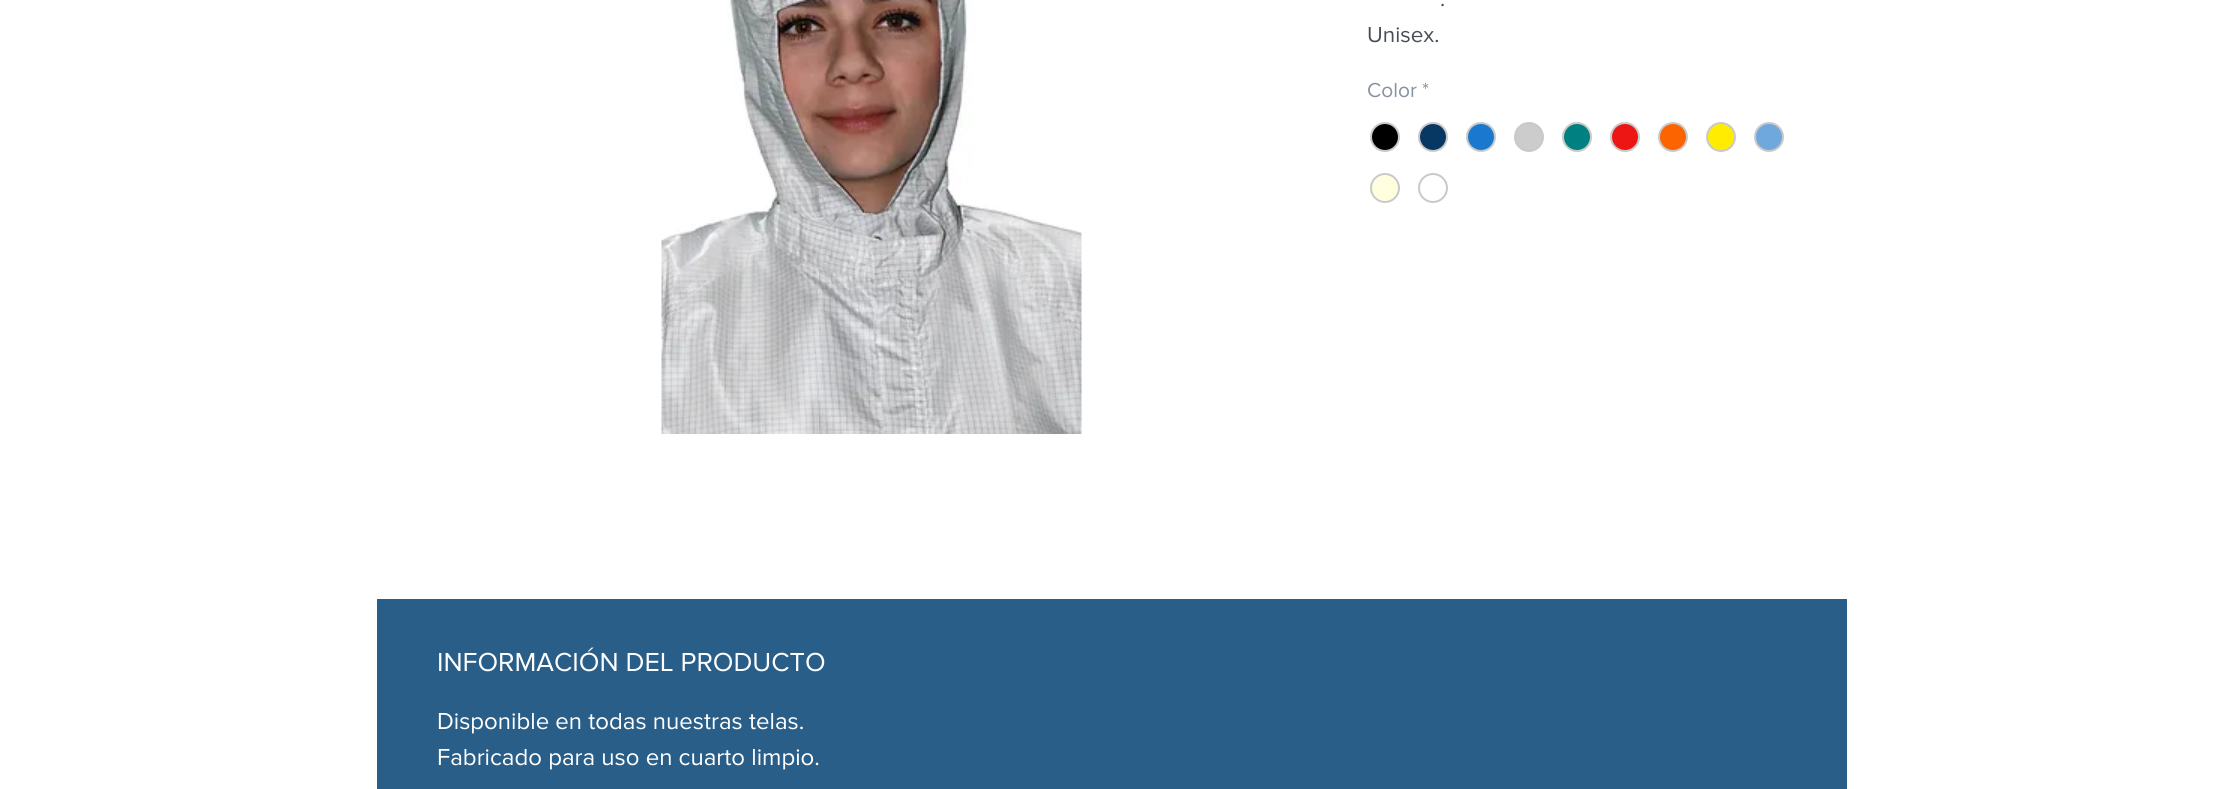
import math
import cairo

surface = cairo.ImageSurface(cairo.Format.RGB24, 2219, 789)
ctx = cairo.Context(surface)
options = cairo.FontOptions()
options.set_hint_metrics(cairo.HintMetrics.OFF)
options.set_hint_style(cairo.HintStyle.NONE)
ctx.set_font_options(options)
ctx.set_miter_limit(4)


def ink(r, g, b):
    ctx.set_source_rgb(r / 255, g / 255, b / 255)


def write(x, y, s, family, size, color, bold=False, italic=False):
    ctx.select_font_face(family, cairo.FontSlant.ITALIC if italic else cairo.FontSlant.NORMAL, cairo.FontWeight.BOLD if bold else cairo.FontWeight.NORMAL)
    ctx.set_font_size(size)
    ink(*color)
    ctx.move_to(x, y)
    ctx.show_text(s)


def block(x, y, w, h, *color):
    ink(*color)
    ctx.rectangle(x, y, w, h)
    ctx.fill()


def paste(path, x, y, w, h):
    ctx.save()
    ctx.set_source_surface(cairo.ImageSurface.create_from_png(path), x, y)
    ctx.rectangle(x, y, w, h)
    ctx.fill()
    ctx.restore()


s1 = dict(family="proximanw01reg", size=22.5, color=(72, 77, 86))
s2 = dict(family="proximanw01reg", size=21, color=(136, 146, 161))
s3 = dict(family="proximanw01reg", size=27, color=(255, 255, 255))
s4 = dict(family="proximanw01reg", size=24, color=(255, 255, 255))

ink(255, 255, 255)
ctx.paint()
paste("pic1.png", 661, 0, 421, 434)
write(1440, 6, ".", **s1)
write(1367, 42, "Unisex.", **s1)
write(1367, 97, "Color", **s2)
write(1422, 97, "*", **s2)
ink(0, 0, 0)
ctx.new_path()
ctx.arc(1385, 137, 14, 0, 2 * math.pi)
ctx.fill_preserve()
ink(201, 201, 201)
ctx.stroke()
ink(7, 55, 99)
ctx.arc(1433, 137, 14, 0, 2 * math.pi)
ctx.fill_preserve()
ink(201, 201, 201)
ctx.stroke()
ink(26, 121, 206)
ctx.arc(1481, 137, 14, 0, 2 * math.pi)
ctx.fill_preserve()
ink(201, 201, 201)
ctx.stroke()
ink(204, 204, 204)
ctx.arc(1529, 137, 14, 0, 2 * math.pi)
ctx.fill_preserve()
ink(201, 201, 201)
ctx.stroke()
ink(0, 128, 128)
ctx.arc(1577, 137, 14, 0, 2 * math.pi)
ctx.fill_preserve()
ink(201, 201, 201)
ctx.stroke()
ink(238, 21, 21)
ctx.arc(1625, 137, 14, 0, 2 * math.pi)
ctx.fill_preserve()
ink(201, 201, 201)
ctx.stroke()
ink(251, 100, 1)
ctx.arc(1673, 137, 14, 0, 2 * math.pi)
ctx.fill_preserve()
ink(201, 201, 201)
ctx.stroke()
ink(255, 236, 0)
ctx.arc(1721, 137, 14, 0, 2 * math.pi)
ctx.fill_preserve()
ink(201, 201, 201)
ctx.stroke()
ink(111, 168, 220)
ctx.arc(1769, 137, 14, 0, 2 * math.pi)
ctx.fill_preserve()
ink(201, 201, 201)
ctx.stroke()
ink(255, 255, 224)
ctx.arc(1385, 188, 14, 0, 2 * math.pi)
ctx.fill_preserve()
ink(201, 201, 201)
ctx.stroke()
ctx.arc(1433, 188, 14, 0, 2 * math.pi)
ctx.stroke()
block(377, 599, 1470, 190, 40, 94, 136)
write(437, 671, "INFORMACIÓN DEL PRODUCTO", **s3)
write(437, 729, "Disponible en todas nuestras telas.", **s4)
write(437, 765, "Fabricado para uso en cuarto limpio.", **s4)
surface.write_to_png("screenshot.png")
